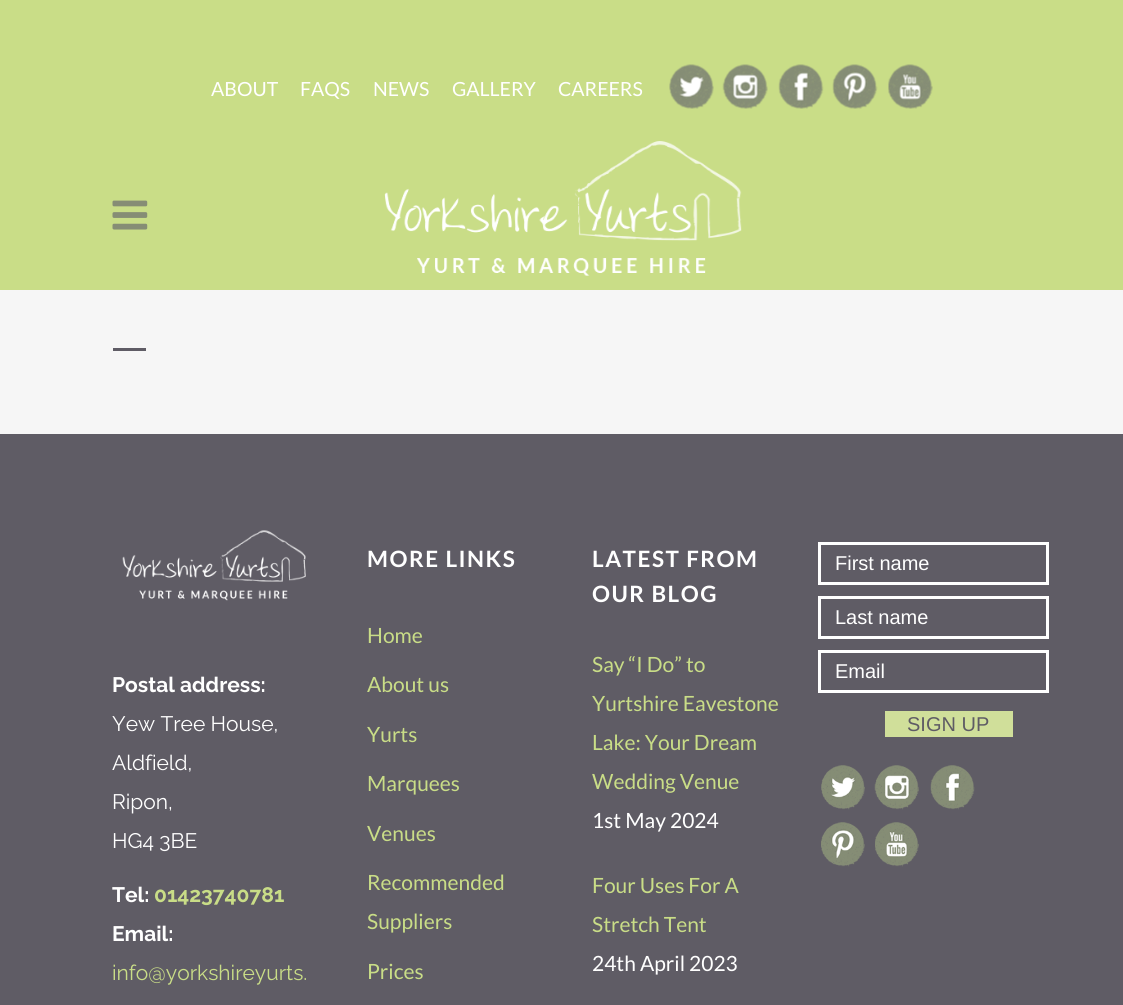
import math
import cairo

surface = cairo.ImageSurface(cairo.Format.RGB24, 1123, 1005)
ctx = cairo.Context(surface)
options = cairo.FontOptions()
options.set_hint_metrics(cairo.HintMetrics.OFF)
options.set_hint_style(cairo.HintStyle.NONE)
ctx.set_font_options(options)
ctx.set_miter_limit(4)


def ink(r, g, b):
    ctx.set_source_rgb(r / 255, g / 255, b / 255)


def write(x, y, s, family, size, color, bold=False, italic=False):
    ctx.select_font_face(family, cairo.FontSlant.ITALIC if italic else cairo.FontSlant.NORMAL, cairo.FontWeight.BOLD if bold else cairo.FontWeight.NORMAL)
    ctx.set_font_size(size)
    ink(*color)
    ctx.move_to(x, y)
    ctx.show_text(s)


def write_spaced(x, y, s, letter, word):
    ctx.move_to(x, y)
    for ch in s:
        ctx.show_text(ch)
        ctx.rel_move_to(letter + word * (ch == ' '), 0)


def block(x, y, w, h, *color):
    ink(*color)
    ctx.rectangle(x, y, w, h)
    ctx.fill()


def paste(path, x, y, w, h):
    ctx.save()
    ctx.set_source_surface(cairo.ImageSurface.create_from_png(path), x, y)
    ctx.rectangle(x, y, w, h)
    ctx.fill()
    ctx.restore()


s1 = dict(family="Lato", size=19.5, color=(255, 255, 255))
s2 = dict(family="Lato", size=21, color=(201, 221, 135))
s3 = dict(family="Lato", size=21, color=(255, 255, 255))
s4 = dict(family="Liberation Sans", size=20, color=(255, 255, 255))
s5 = dict(family="Liberation Sans", size=20, color=(95, 92, 101))
s6 = dict(family="Raleway", size=21, color=(255, 255, 255), bold=True)
s7 = dict(family="Raleway", size=21, color=(255, 255, 255))
s8 = dict(family="Raleway", size=21, color=(201, 221, 135), bold=True)
s9 = dict(family="Raleway", size=21, color=(201, 221, 135))

ink(246, 246, 246)
ctx.paint()
block(0, 0, 1123, 290, 201, 221, 135)
paste("pic1.png", 112, 200, 36, 30)
paste("pic2.png", 384, 141, 358, 135)
write(211, 96, "ABOUT", **s1)
write(300, 96, "FAQS", **s1)
write(373, 96, "NEWS", **s1)
write(452, 96, "GALLERY", **s1)
write(558, 96, "CAREERS", **s1)
paste("pic3.png", 669, 64, 45, 45)
paste("pic4.png", 722, 64, 46, 45)
paste("pic5.png", 778, 64, 46, 45)
paste("pic6.png", 832, 64, 46, 45)
paste("pic7.png", 888, 64, 45, 45)
block(113, 348, 33, 3, 95, 92, 101)
block(0, 434, 1123, 571, 95, 92, 101)
ctx.select_font_face("Lato", cairo.FontSlant.NORMAL, cairo.FontWeight.BOLD)
ctx.set_font_size(22.5)
ink(255, 255, 255)
write_spaced(367, 567, "MORE LINKS", 1.5, 0)
write(367, 643, "Home", **s2)
write(367, 692, "About us", **s2)
write(367, 742, "Yurts", **s2)
write(367, 791, "Marquees", **s2)
write(367, 841, "Venues", **s2)
write(367, 890, "Recommended", **s2)
write(367, 929, "Suppliers", **s2)
write(367, 979, "Prices", **s2)
ctx.select_font_face("Lato", cairo.FontSlant.NORMAL, cairo.FontWeight.BOLD)
ctx.set_font_size(22.5)
ink(255, 255, 255)
write_spaced(592, 567, "LATEST FROM", 1.5, 0)
write_spaced(592, 602, "OUR BLOG", 1.5, 0)
write(592, 672, "Say “I Do” to", **s2)
write(592, 711, "Yurtshire Eavestone", **s2)
write(592, 750, "Lake: Your Dream", **s2)
write(592, 789, "Wedding Venue", **s2)
write(592, 828, "1st May 2024", **s3)
write(592, 893, "Four Uses For A", **s2)
write(592, 932, "Stretch Tent", **s2)
write(592, 971, "24th April 2023", **s3)
ctx.rectangle(819.5, 543.5, 228, 40)
ctx.set_line_width(3)
ctx.stroke()
write(835, 570, "First name", **s4)
ctx.rectangle(819.5, 597.5, 228, 40)
ctx.stroke()
write(835, 624, "Last name", **s4)
ctx.rectangle(819.5, 651.5, 228, 40)
ctx.stroke()
write(835, 678, "Email", **s4)
block(885, 711, 128, 26, 208, 223, 154)
write(907, 731, "SIGN UP", **s5)
paste("pic8.png", 821, 765, 44, 45)
paste("pic9.png", 874, 765, 45, 45)
paste("pic10.png", 930, 765, 45, 45)
paste("pic11.png", 821, 822, 44, 45)
paste("pic12.png", 875, 822, 44, 45)
paste("pic13.png", 122, 530, 184, 71)
write(112, 692, "Postal address:", **s6)
write(112, 731, "Yew Tree House,", **s7)
write(112, 770, "Aldfield,", **s7)
write(112, 809, "Ripon,", **s7)
write(112, 848, "HG4 3BE", **s7)
write(112, 902, "Tel:", **s6)
write(154, 902, "01423740781", **s8)
write(112, 941, "Email:", **s6)
write(112, 980, "info@yorkshireyurts.", **s9)
surface.write_to_png("screenshot.png")
